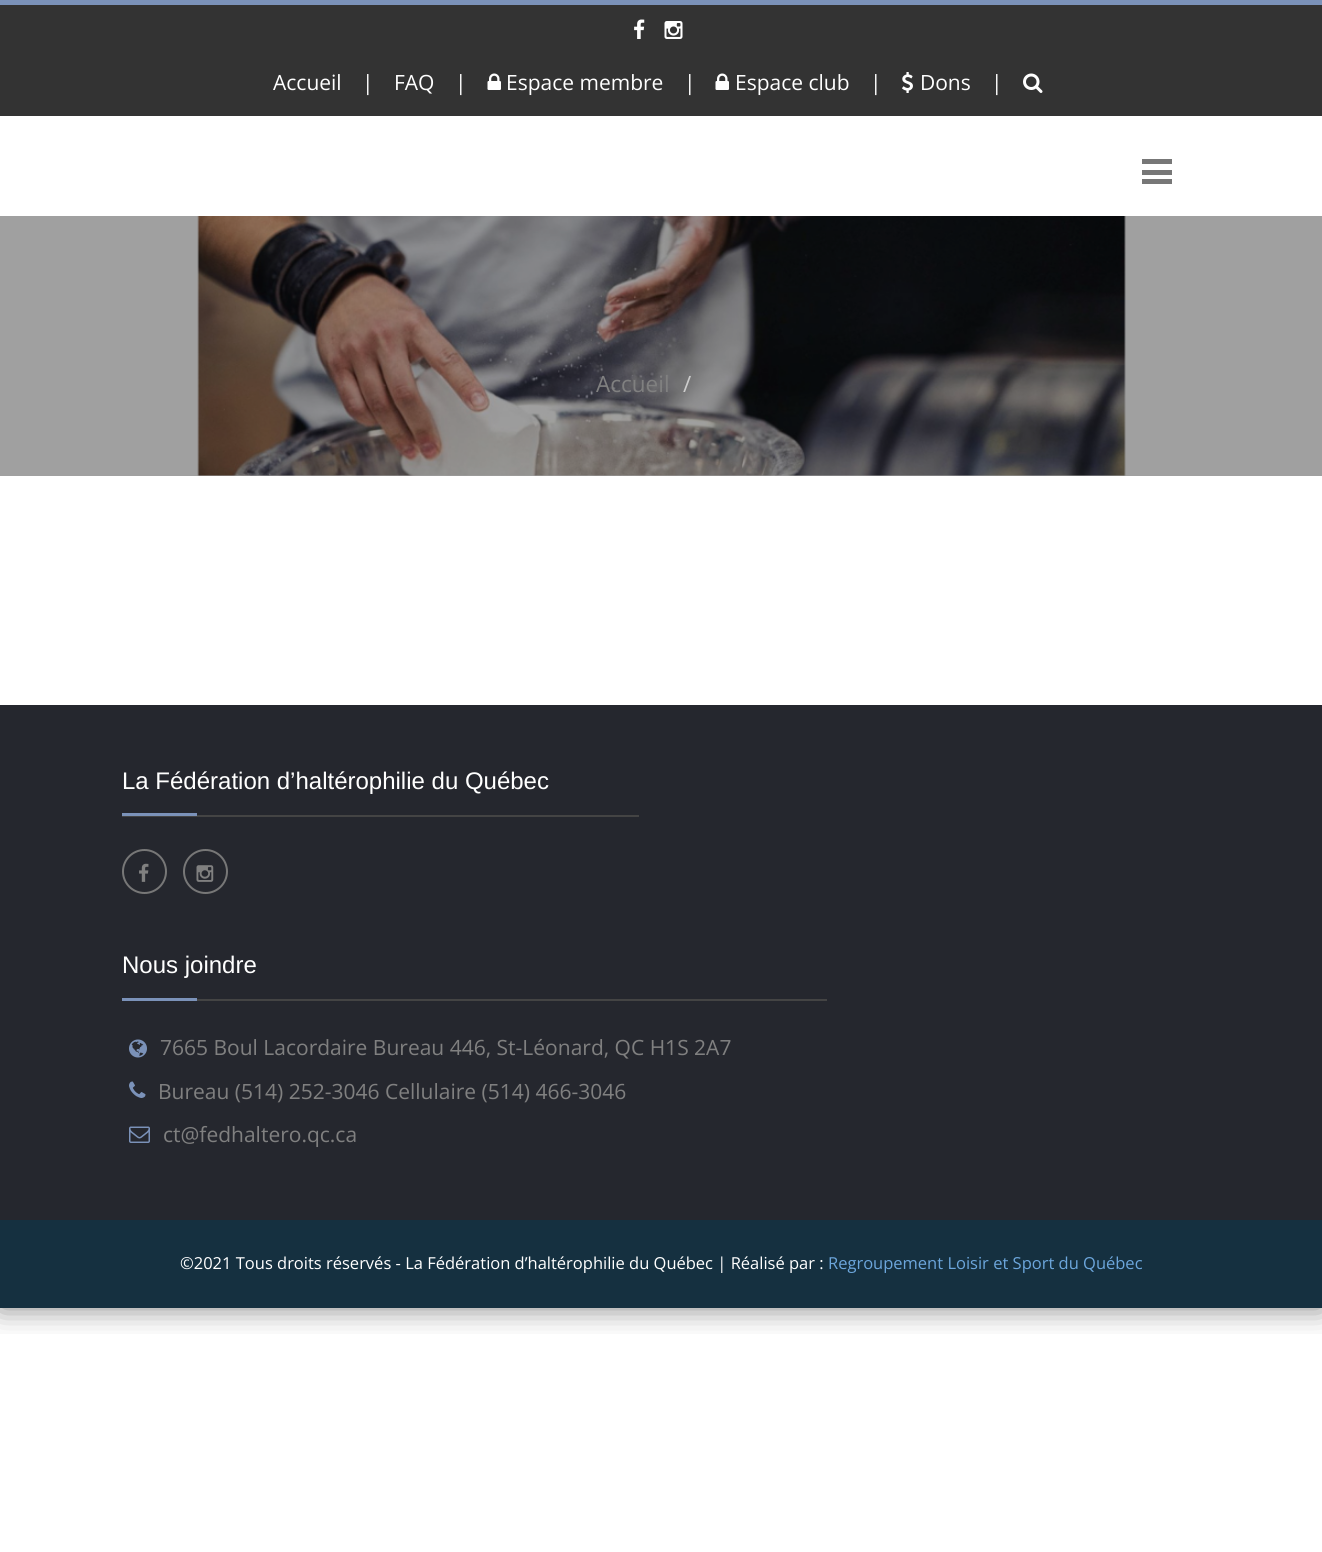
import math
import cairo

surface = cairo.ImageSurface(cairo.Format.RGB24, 1322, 1552)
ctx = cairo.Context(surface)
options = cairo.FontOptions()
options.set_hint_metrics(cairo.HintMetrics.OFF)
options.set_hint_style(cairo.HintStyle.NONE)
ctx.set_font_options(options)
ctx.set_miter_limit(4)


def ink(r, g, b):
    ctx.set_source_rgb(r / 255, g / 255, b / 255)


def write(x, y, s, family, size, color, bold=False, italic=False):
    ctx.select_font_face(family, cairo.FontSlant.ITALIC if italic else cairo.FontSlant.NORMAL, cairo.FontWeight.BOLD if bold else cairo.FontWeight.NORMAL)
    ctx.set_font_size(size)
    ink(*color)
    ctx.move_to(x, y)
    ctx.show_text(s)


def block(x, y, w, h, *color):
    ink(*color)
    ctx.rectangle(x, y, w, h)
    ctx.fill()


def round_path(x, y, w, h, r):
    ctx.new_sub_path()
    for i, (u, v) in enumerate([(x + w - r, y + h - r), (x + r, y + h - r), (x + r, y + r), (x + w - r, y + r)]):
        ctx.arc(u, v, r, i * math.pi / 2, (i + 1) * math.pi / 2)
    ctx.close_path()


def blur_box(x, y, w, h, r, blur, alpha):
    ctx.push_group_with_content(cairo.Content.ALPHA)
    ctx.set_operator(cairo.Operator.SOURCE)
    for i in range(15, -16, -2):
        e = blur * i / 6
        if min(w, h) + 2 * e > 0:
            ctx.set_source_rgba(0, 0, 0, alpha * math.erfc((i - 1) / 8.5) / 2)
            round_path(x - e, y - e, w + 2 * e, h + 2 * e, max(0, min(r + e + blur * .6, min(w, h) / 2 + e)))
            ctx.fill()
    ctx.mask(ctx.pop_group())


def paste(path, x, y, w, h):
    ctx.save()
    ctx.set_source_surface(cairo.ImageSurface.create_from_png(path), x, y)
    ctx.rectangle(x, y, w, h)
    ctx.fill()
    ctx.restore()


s1 = dict(family="Open Sans", size=21, color=(255, 255, 255))
s2 = dict(family="Open Sans", size=22.5, color=(128, 128, 128))
s3 = dict(family="Open Sans", size=22.5, color=(204, 204, 204))
s4 = dict(family="Liberation Sans", size=24, color=(255, 255, 255))
s5 = dict(family="Open Sans", size=21, color=(128, 128, 128))
s6 = dict(family="Open Sans", size=16.5, color=(255, 255, 255))
s7 = dict(family="Open Sans", size=16.5, color=(108, 166, 220))

ink(255, 255, 255)
ctx.paint()
block(0, 216, 1322, 260, 160, 160, 160)
ctx.save()
ctx.rectangle(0, 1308, 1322, 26)
ctx.clip()
ink(0, 0, 0)
blur_box(0, 0, 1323, 1308, 0, 15, 0.5)
ctx.restore()
block(0, 5, 1322, 111, 51, 51, 51)
block(0, 0, 1322, 5, 123, 146, 185)
paste("pic1.png", 634, 19, 11, 20)
paste("pic2.png", 664, 21, 19, 18)
write(273, 90, "Accueil", **s1)
write(362, 90, "|", **s1)
write(394, 90, "FAQ", **s1)
write(455, 90, "|", **s1)
paste("pic3.png", 487, 73, 14, 17)
write(506, 90, "Espace membre", **s1)
write(684, 90, "|", **s1)
paste("pic3.png", 715, 73, 14, 17)
write(735, 90, "Espace club", **s1)
write(870, 90, "|", **s1)
paste("pic4.png", 902, 72, 11, 21)
write(920, 90, "Dons", **s1)
write(991, 90, "|", **s1)
paste("pic5.png", 1023, 73, 20, 20)
block(1142, 159, 30, 5, 119, 119, 119)
block(1142, 170, 30, 5, 119, 119, 119)
block(1142, 179, 30, 5, 119, 119, 119)
paste("pic6.png", 197, 216, 929, 260)
write(596, 392, "Accueil", **s2)
write(683, 392, "/", **s3)
block(0, 705, 1322, 515, 37, 39, 46)
block(122, 815, 517, 2, 68, 68, 68)
write(122, 789, "La Fédération d’haltérophilie du Québec", **s4)
block(122, 813, 75, 3, 123, 146, 185)
ctx.new_path()
ctx.arc(144.5, 871.5, 21.5, 0, 2 * math.pi)
ink(119, 119, 119)
ctx.stroke()
paste("pic7.png", 139, 863, 10, 19)
ctx.arc(205.5, 871.5, 21.5, 0, 2 * math.pi)
ctx.stroke()
paste("pic8.png", 196, 865, 18, 17)
block(197, 999, 630, 2, 68, 68, 68)
write(122, 973, "Nous joindre", **s4)
block(122, 998, 75, 3, 123, 146, 185)
paste("pic9.png", 129, 1039, 18, 19)
write(160, 1055, "7665 Boul Lacordaire Bureau 446, St-Léonard, QC H1S 2A7", **s5)
paste("pic10.png", 129, 1081, 17, 17)
write(158, 1099, "Bureau (514) 252-3046 Cellulaire (514) 466-3046", **s5)
paste("pic11.png", 129, 1126, 21, 17)
write(163, 1142, "ct@fedhaltero.qc.ca", **s5)
block(0, 1220, 1322, 88, 21, 48, 64)
write(180, 1269, "©2021 Tous droits réservés - La Fédération d’haltérophilie du Québec | Réalisé par :", **s6)
write(828, 1269, "Regroupement Loisir et Sport du Québec", **s7)
surface.write_to_png("screenshot.png")
